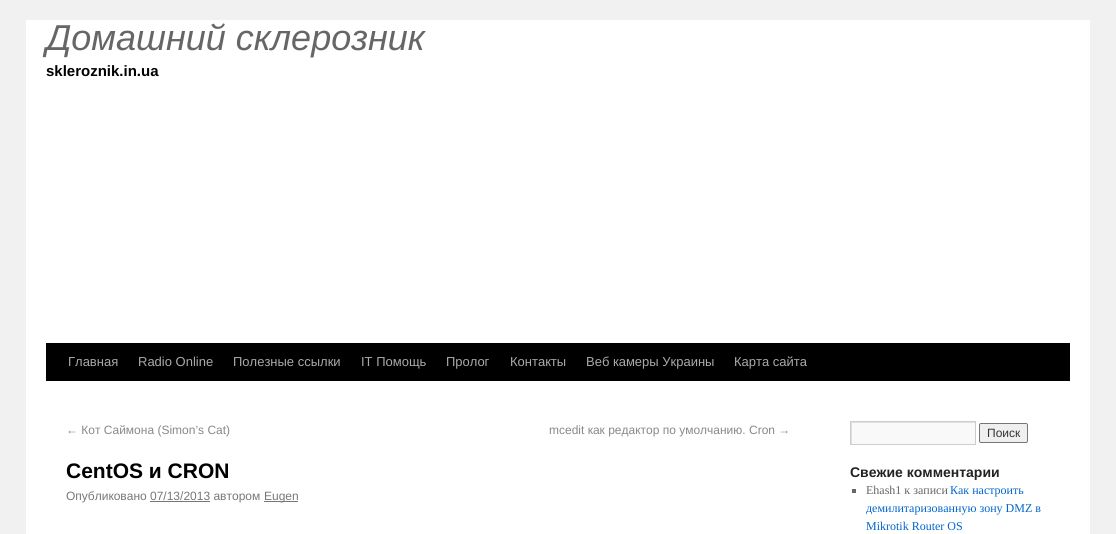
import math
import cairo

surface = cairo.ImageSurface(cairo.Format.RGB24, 1116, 534)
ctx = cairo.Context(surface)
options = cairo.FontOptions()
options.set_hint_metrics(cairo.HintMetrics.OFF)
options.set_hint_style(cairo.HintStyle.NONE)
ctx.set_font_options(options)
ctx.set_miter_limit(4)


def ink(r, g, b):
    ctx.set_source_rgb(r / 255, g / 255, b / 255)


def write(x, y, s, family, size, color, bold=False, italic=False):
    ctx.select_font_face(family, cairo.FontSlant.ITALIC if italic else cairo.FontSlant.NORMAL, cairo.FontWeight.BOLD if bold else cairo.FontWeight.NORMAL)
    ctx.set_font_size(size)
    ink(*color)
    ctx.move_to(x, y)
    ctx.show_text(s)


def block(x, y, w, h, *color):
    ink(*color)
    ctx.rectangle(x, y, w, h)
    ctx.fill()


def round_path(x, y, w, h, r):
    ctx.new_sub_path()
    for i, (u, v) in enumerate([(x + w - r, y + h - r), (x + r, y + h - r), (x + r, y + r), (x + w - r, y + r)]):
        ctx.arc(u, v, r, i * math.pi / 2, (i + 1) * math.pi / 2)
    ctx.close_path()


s1 = dict(family="Liberation Sans", size=36, color=(102, 102, 102), italic=True)
s2 = dict(family="Liberation Sans", size=15, color=(0, 0, 0), bold=True)
s3 = dict(family="Liberation Sans", size=13, color=(170, 170, 170))
s4 = dict(family="Liberation Sans", size=12, color=(136, 136, 136))
s5 = dict(family="Liberation Sans", size=21, color=(0, 0, 0), bold=True)
s6 = dict(family="Liberation Sans", size=12, color=(119, 119, 119))
s7 = dict(family="Liberation Sans", size=12, color=(51, 51, 51))
s8 = dict(family="Liberation Sans", size=14, color=(34, 34, 34), bold=True)
s9 = dict(family="Liberation Serif", size=12, color=(102, 102, 102))
s10 = dict(family="Liberation Serif", size=12, color=(0, 102, 204))

ink(241, 241, 241)
ctx.paint()
block(26, 20, 1064, 514, 255, 255, 255)
write(46, 50, "Домашний склерозник", **s1)
write(46, 76, "skleroznik.in.ua", **s2)
block(46, 343, 1024, 38, 0, 0, 0)
write(68, 366, "Главная", **s3)
write(138, 366, "Radio Online", **s3)
write(233, 366, "Полезные ссылки", **s3)
write(361, 366, "IT Помощь", **s3)
write(446, 366, "Пролог", **s3)
write(510, 366, "Контакты", **s3)
write(586, 366, "Веб камеры Украины", **s3)
write(734, 366, "Карта сайта", **s3)
write(66, 434, "← Кот Саймона (Simon’s Cat)", **s4)
write(549, 434, "mcedit как редактор по умолчанию. Cron →", **s4)
write(66, 478, "CentOS и CRON", **s5)
write(66, 500, "Опубликовано 07/13/2013 автором", **s6)
block(264, 501, 34, 1, 119, 119, 119)
write(264, 500, "Eugen", **s6)
block(150, 501, 60, 1, 119, 119, 119)
block(852, 423, 123, 21, 249, 249, 249)
ctx.save()
ctx.rectangle(851, 422, 124, 22)
ctx.clip()
ink(224, 224, 224)
ctx.set_fill_rule(cairo.FillRule.EVEN_ODD)
ctx.new_path()
ctx.move_to(752, 323)
ctx.line_to(1074, 323)
ctx.line_to(1074, 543)
ctx.line_to(752, 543)
ctx.close_path()
ctx.move_to(852, 423)
ctx.line_to(976, 423)
ctx.line_to(976, 445)
ctx.line_to(852, 445)
ctx.close_path()
ctx.fill()
ctx.restore()
ctx.rectangle(850.5, 421.5, 125, 23)
ink(204, 204, 204)
ctx.set_line_width(1)
ctx.stroke()
ink(239, 239, 239)
round_path(979.5, 423.5, 48, 19, 1.5)
ctx.fill_preserve()
ink(118, 118, 118)
ctx.stroke()
write(987, 437, "Поиск", **s7)
write(850, 477, "Свежие комментарии", **s8)
block(852, 489, 4, 4, 102, 102, 102)
write(866, 494, "Ehash1 к записи", **s9)
write(950, 494, "Как настроить", **s10)
write(866, 512, "демилитаризованную зону DMZ в", **s10)
write(866, 530, "Mikrotik Router OS", **s10)
surface.write_to_png("screenshot.png")
